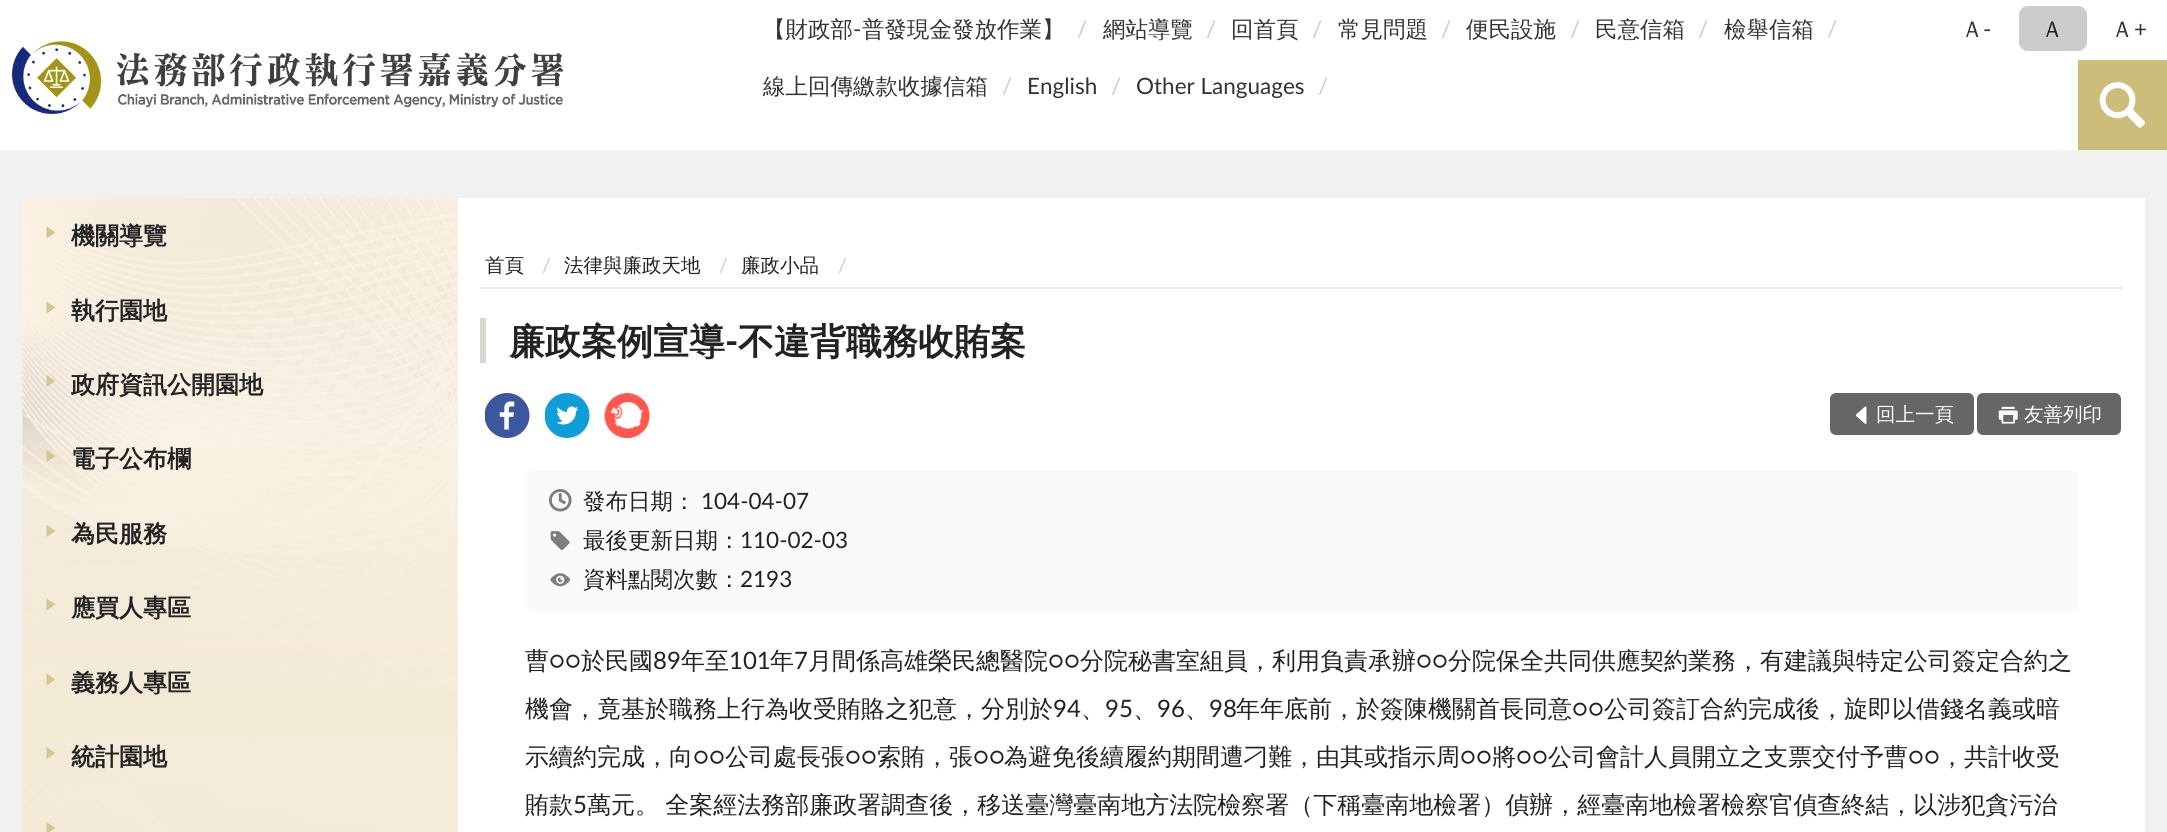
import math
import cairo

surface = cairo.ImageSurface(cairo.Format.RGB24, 2167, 832)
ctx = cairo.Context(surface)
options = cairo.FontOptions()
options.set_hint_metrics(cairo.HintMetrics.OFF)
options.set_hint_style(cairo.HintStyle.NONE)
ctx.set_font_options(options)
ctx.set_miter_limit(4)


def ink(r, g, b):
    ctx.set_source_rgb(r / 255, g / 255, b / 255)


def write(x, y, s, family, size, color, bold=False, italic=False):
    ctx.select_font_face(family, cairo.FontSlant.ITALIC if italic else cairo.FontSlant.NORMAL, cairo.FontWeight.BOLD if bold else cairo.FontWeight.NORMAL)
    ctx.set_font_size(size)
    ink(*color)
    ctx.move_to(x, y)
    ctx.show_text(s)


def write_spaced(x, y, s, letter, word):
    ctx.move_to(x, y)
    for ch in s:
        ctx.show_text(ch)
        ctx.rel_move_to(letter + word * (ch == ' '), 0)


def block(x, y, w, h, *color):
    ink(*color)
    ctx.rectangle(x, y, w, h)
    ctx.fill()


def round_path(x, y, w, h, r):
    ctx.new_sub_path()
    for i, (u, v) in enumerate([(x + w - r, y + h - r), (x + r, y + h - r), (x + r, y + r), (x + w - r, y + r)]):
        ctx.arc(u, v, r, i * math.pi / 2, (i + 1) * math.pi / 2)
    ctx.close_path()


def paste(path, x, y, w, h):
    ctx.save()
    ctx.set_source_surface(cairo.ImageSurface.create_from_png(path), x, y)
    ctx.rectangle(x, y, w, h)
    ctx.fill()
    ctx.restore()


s1 = dict(family="WenQuanYi Zen Hei Medium", size=22.5, color=(51, 51, 51))
s2 = dict(family="Lato", size=22.5, color=(51, 51, 51))
s3 = dict(family="Lato", size=22.5, color=(204, 204, 204))
s4 = dict(family="WenQuanYi Zen Hei Medium", size=22.5, color=(34, 34, 34))
s5 = dict(family="WenQuanYi Zen Hei", size=24, color=(34, 34, 34), bold=True)
s6 = dict(family="WenQuanYi Zen Hei Medium", size=19.5, color=(34, 34, 34))
s7 = dict(family="Lato", size=19.5, color=(204, 204, 204))
s8 = dict(family="WenQuanYi Zen Hei", size=36, color=(34, 34, 34), bold=True)
s9 = dict(family="Lato", size=36, color=(34, 34, 34), bold=True)
s10 = dict(family="WenQuanYi Zen Hei Medium", size=19.5, color=(255, 255, 255))
s11 = dict(family="Lato", size=22.5, color=(34, 34, 34))
s12 = dict(family="WenQuanYi Zen Hei Medium", size=24, color=(34, 34, 34))
s13 = dict(family="Lato", size=24, color=(34, 34, 34))

ink(255, 255, 255)
ctx.paint()
paste("pic1.png", 12, 41, 552, 73)
write(763, 37, "【財政部", **s1)
write(853, 37, "-", **s2)
write(862, 37, "普發現金發放作業】", **s1)
write(1077, 37, "/", **s3)
write(1103, 37, "網站導覽", **s1)
write(1206, 37, "/", **s3)
write(1231, 37, "回首頁", **s1)
write(1312, 37, "/", **s3)
write(1338, 37, "常見問題", **s1)
write(1441, 37, "/", **s3)
write(1466, 37, "便民設施", **s1)
write(1570, 37, "/", **s3)
write(1595, 37, "民意信箱", **s1)
write(1698, 37, "/", **s3)
write(1724, 37, "檢舉信箱", **s1)
write(1827, 37, "/", **s3)
write(763, 94, "線上回傳繳款收據信箱", **s1)
write(1002, 94, "/", **s3)
write(1027, 94, "English", **s2)
write(1111, 94, "/", **s3)
write(1136, 94, "Other Languages", **s2)
write(1318, 94, "/", **s3)
write(1961, 37, "Ａ", **s1)
write(1983, 37, "-", **s2)
ink(204, 204, 204)
round_path(2019, 6, 68, 45, 9)
ctx.fill()
write(2041, 37, "Ａ", **s4)
write(2111, 37, "Ａ", **s1)
write(2134, 37, "+", **s2)
block(2078, 60, 89, 90, 205, 189, 122)
paste("pic2.png", 2099, 81, 46, 48)
block(0, 150, 2167, 682, 241, 241, 241)
paste("pic3.png", 22, 198, 436, 634)
ink(212, 198, 141)
ctx.new_path()
ctx.move_to(46.5, 238.5)
ctx.line_to(46.5, 226.5)
ctx.line_to(55.5, 232.5)
ctx.close_path()
ctx.fill()
write(71, 244, "機關導覽", **s5)
ink(212, 198, 141)
ctx.new_path()
ctx.move_to(46.5, 313.5)
ctx.line_to(46.5, 301.5)
ctx.line_to(55.5, 307.5)
ctx.close_path()
ctx.fill()
write(71, 319, "執行園地", **s5)
ink(212, 198, 141)
ctx.new_path()
ctx.move_to(46.5, 387)
ctx.line_to(46.5, 375)
ctx.line_to(55.5, 381)
ctx.close_path()
ctx.fill()
write(71, 393, "政府資訊公開園地", **s5)
ink(212, 198, 141)
ctx.new_path()
ctx.move_to(46.5, 462)
ctx.line_to(46.5, 450)
ctx.line_to(55.5, 456)
ctx.close_path()
ctx.fill()
write(71, 467, "電子公布欄", **s5)
ink(212, 198, 141)
ctx.new_path()
ctx.move_to(46.5, 537)
ctx.line_to(46.5, 525)
ctx.line_to(55.5, 531)
ctx.close_path()
ctx.fill()
write(71, 542, "為民服務", **s5)
ink(212, 198, 141)
ctx.new_path()
ctx.move_to(46.5, 610.5)
ctx.line_to(46.5, 598.5)
ctx.line_to(55.5, 604.5)
ctx.close_path()
ctx.fill()
write(71, 616, "應買人專區", **s5)
ink(212, 198, 141)
ctx.new_path()
ctx.move_to(46.5, 685.5)
ctx.line_to(46.5, 673.5)
ctx.line_to(55.5, 679.5)
ctx.close_path()
ctx.fill()
write(71, 691, "義務人專區", **s5)
ink(212, 198, 141)
ctx.new_path()
ctx.move_to(46.5, 759)
ctx.line_to(46.5, 747)
ctx.line_to(55.5, 753)
ctx.close_path()
ctx.fill()
write(71, 765, "統計園地", **s5)
ink(212, 198, 141)
ctx.new_path()
ctx.move_to(46.5, 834)
ctx.line_to(46.5, 822)
ctx.line_to(55.5, 828)
ctx.close_path()
ctx.fill()
block(458, 198, 1687, 634, 255, 255, 255)
block(480, 287, 1643, 2, 238, 238, 238)
write(485, 272, "首頁", **s6)
write(542, 272, "/", **s7)
write(564, 272, "法律與廉政天地", **s6)
write(719, 272, "/", **s7)
write(741, 272, "廉政小品", **s6)
write(838, 272, "/", **s7)
block(480, 318, 6, 45, 215, 217, 206)
write(509, 354, "廉政案例宣導", **s8)
write(725, 354, "-", **s9)
write(738, 354, "不違背職務收賄案", **s8)
paste("pic4.png", 485, 393, 45, 45)
paste("pic5.png", 545, 393, 45, 45)
paste("pic6.png", 604, 393, 46, 45)
ink(102, 102, 102)
round_path(1830, 393, 144, 42, 6)
ctx.fill()
paste("pic7.png", 1856, 406, 11, 18)
write(1876, 421, "回上一頁", **s10)
ink(102, 102, 102)
round_path(1977, 393, 144, 42, 6)
ctx.fill()
paste("pic8.png", 1998, 406, 20, 18)
write(2024, 421, "友善列印", **s10)
ink(250, 250, 250)
round_path(525, 470, 1553, 142, 9)
ctx.fill()
paste("pic9.png", 549, 489, 23, 23)
write(583, 509, "發布日期：", **s4)
write(701, 509, "104-04-07", **s11)
paste("pic10.png", 550, 531, 20, 20)
write(583, 548, "最後更新日期：", **s4)
write(740, 548, "110-02-03", **s11)
paste("pic11.png", 550, 573, 20, 14)
write(583, 587, "資料點閱次數：", **s4)
write(740, 587, "2193", **s11)
write(525, 669, "曹", **s12)
write(549, 669, "○○", **s13)
write(581, 669, "於民國", **s12)
write(653, 669, "89", **s13)
write(681, 669, "年至", **s12)
write(729, 669, "101", **s13)
write(770, 669, "年", **s12)
write(794, 669, "7", **s13)
write(808, 669, "月間係高雄榮民總醫院", **s12)
write(1048, 669, "○○", **s13)
write(1080, 669, "分院秘書室組員，利用負責承辦", **s12)
write(1416, 669, "○○", **s13)
write(1448, 669, "分院保全共同供應契約業務，有建議與特定公司簽定合約之", **s12)
write(525, 717, "機會，竟基於職務上行為收受賄賂之犯意，分別於", **s12)
write(1053, 717, "94", **s13)
write(1105, 717, "95", **s13)
write(1157, 717, "96", **s13)
write(1209, 717, "98", **s13)
write(1236, 717, "年年底前，於簽陳機關首長同意", **s12)
write(1572, 717, "○○", **s13)
write(1604, 717, "公司簽訂合約完成後，旋即以借錢名義或暗", **s12)
write(1081, 717, "、", **s12)
write(1133, 717, "、", **s12)
write(1185, 717, "、", **s12)
write(525, 765, "示續約完成，向", **s12)
write(693, 765, "○○", **s13)
write(725, 765, "公司處長張", **s12)
write(845, 765, "○○", **s13)
write(877, 765, "索賄，張", **s12)
write(973, 765, "○○", **s13)
write(1004, 765, "為避免後續履約期間遭刁難，由其或指示周", **s12)
write(1460, 765, "○○", **s13)
write(1492, 765, "將", **s12)
write(1516, 765, "○○", **s13)
write(1548, 765, "公司會計人員開立之支票交付予曹", **s12)
write(1908, 765, "○○", **s13)
write(1940, 765, "，共計收受", **s12)
write(525, 813, "賄款", **s12)
write(573, 813, "5", **s13)
ctx.select_font_face("WenQuanYi Zen Hei Medium")
write_spaced(587, 813, "萬元。 全案經法務部廉政署調查後，移送臺灣臺南地方法院檢察署（下稱臺南地檢署）偵辦，經臺南地檢署檢察官偵查終結，以涉犯貪污治", 0, -1)
surface.write_to_png("screenshot.png")
